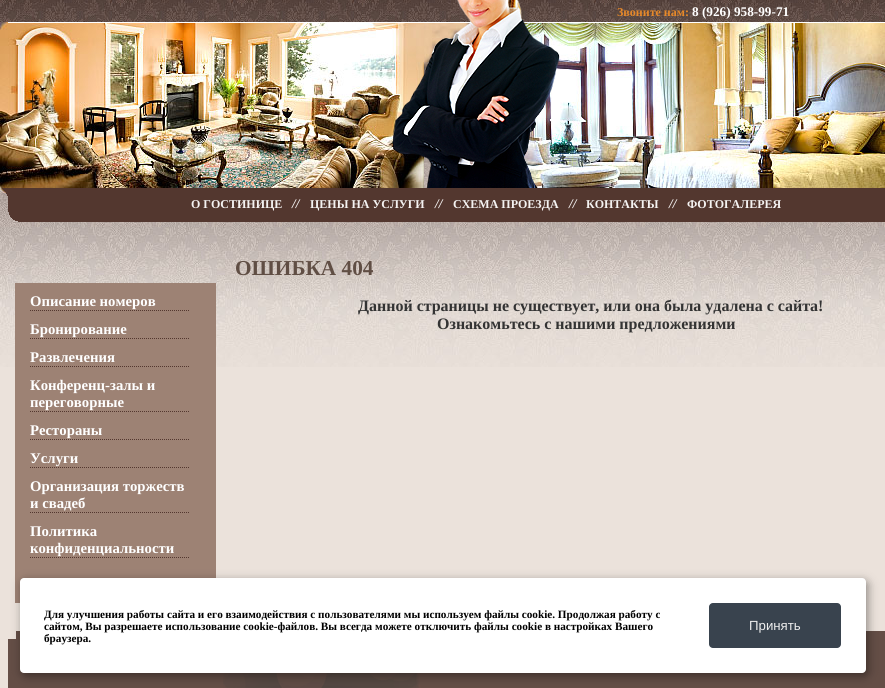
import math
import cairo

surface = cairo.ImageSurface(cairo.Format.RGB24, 885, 688)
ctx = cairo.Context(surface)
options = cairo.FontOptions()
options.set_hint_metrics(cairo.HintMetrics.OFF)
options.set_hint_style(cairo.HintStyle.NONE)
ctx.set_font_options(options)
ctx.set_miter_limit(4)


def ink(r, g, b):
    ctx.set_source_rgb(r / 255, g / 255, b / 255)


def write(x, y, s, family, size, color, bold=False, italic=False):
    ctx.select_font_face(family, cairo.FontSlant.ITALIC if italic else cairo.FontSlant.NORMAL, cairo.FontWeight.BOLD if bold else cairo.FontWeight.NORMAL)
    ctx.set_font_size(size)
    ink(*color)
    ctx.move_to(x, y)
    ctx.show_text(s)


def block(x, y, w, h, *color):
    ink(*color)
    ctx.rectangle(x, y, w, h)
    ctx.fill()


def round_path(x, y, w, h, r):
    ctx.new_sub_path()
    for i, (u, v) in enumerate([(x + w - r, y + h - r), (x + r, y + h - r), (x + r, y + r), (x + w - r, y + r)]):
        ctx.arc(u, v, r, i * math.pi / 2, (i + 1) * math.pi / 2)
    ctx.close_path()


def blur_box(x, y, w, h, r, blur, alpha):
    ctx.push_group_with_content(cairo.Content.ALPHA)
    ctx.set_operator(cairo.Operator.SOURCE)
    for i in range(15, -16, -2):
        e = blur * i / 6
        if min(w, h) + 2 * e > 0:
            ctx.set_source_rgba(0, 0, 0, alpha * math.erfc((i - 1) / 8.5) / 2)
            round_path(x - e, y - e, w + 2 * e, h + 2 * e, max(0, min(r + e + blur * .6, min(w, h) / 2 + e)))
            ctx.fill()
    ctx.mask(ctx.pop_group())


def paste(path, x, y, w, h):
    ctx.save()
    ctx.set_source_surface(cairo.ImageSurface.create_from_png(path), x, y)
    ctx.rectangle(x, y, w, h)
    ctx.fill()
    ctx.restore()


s1 = dict(family="Liberation Serif", size=12, color=(231, 137, 41), bold=True)
s2 = dict(family="Liberation Serif", size=13.25, color=(255, 255, 255), bold=True)
s3 = dict(family="Liberation Serif", size=12, color=(245, 243, 242), bold=True)
s4 = dict(family="Liberation Serif", size=13.25, color=(245, 243, 242), bold=True, italic=True)
s5 = dict(family="Liberation Serif", size=14.75, color=(255, 255, 255), bold=True)
s6 = dict(family="Liberation Serif", size=21.25, color=(96, 78, 68), bold=True)
s7 = dict(family="Liberation Serif", size=16, color=(51, 51, 51), bold=True)
s8 = dict(family="Liberation Serif", size=11.2, color=(0, 0, 0), bold=True)
s9 = dict(family="Liberation Sans", size=13.25, color=(237, 237, 237))

ink(235, 226, 219)
ctx.paint()
paste("pic1.png", 0, 0, 885, 367)
paste("pic3.png", 0, 22, 885, 171)
block(8, 22, 877, 1, 255, 255, 255)
paste("pic2.png", 393, 0, 167, 188)
write(617, 16, "Звоните нам:", **s1)
write(692, 16, "8 (926) 958-99-71", **s2)
block(2, 188, 883, 1, 83, 55, 47)
block(3, 189, 882, 1, 83, 55, 47)
block(4, 190, 881, 1, 83, 55, 47)
block(5, 191, 880, 1, 83, 55, 47)
block(6, 192, 879, 2, 83, 55, 47)
block(7, 194, 878, 2, 83, 55, 47)
block(8, 196, 877, 16, 83, 55, 47)
write(191, 208, "О ГОСТИНИЦЕ", **s3)
write(292, 208, "//", **s4)
write(310, 208, "ЦЕНЫ НА УСЛУГИ", **s3)
write(435, 208, "//", **s4)
write(453, 208, "СХЕМА ПРОЕЗДА", **s3)
write(569, 208, "//", **s4)
write(586, 208, "КОНТАКТЫ", **s3)
write(669, 208, "//", **s4)
write(687, 208, "ФОТОГАЛЕРЕЯ", **s3)
block(9, 212, 876, 3, 83, 55, 47)
block(10, 215, 875, 2, 83, 55, 47)
block(11, 217, 874, 1, 83, 55, 47)
block(12, 218, 873, 1, 83, 55, 47)
block(13, 219, 872, 1, 83, 55, 47)
block(15, 220, 870, 1, 83, 55, 47)
block(18, 221, 867, 1, 83, 55, 47)
block(15, 283, 201, 320, 157, 130, 116)
ctx.new_path()
ctx.move_to(30, 310.5)
ctx.line_to(190, 310.5)
ink(83, 55, 47)
ctx.set_line_width(1)
ctx.set_dash([1, 1])
ctx.stroke()
write(30, 306, "Описание номеров", **s5)
ctx.new_path()
ctx.move_to(30, 338.5)
ctx.line_to(190, 338.5)
ink(83, 55, 47)
ctx.stroke()
write(30, 334, "Бронирование", **s5)
ctx.new_path()
ctx.move_to(30, 366.5)
ctx.line_to(190, 366.5)
ink(83, 55, 47)
ctx.stroke()
write(30, 362, "Развлечения", **s5)
ctx.new_path()
ctx.move_to(30, 411.5)
ctx.line_to(190, 411.5)
ink(83, 55, 47)
ctx.stroke()
write(30, 390, "Конференц-залы и", **s5)
write(30, 407, "переговорные", **s5)
ctx.new_path()
ctx.move_to(30, 439.5)
ctx.line_to(190, 439.5)
ink(83, 55, 47)
ctx.stroke()
write(30, 435, "Рестораны", **s5)
ctx.new_path()
ctx.move_to(30, 467.5)
ctx.line_to(190, 467.5)
ink(83, 55, 47)
ctx.stroke()
write(30, 463, "Услуги", **s5)
ctx.new_path()
ctx.move_to(30, 512.5)
ctx.line_to(190, 512.5)
ink(83, 55, 47)
ctx.stroke()
write(30, 491, "Организация торжеств", **s5)
write(30, 508, "и свадеб", **s5)
ctx.new_path()
ctx.move_to(30, 557.5)
ctx.line_to(190, 557.5)
ink(83, 55, 47)
ctx.stroke()
write(30, 536, "Политика", **s5)
write(30, 553, "конфиденциальности", **s5)
write(235, 275, "ОШИБКА 404", **s6)
write(358, 311, "Данной страницы не существует, или она была удалена с сайта!", **s7)
write(437, 329, "Ознакомьтесь с нашими предложениями", **s7)
block(16, 631, 869, 8, 100, 78, 70)
block(8, 639, 877, 49, 100, 78, 70)
paste("pic4.png", 223, 673, 200, 15)
ink(0, 0, 0)
blur_box(22, 581, 846, 95, 4, 5, 0.4)
ink(255, 255, 255)
round_path(20, 578, 846, 95, 4)
ctx.fill()
write(44, 618, "Для улучшения работы сайта и его взаимодействия с пользователями мы используем файлы cookie. Продолжая работу с", **s8)
write(44, 630, "сайтом, Вы разрешаете использование cookie-файлов. Вы всегда можете отключить файлы cookie в настройках Вашего", **s8)
write(44, 642, "браузера.", **s8)
ink(57, 67, 78)
round_path(709, 603, 132, 45, 4)
ctx.fill()
write(749, 630, "Принять", **s9)
surface.write_to_png("screenshot.png")
